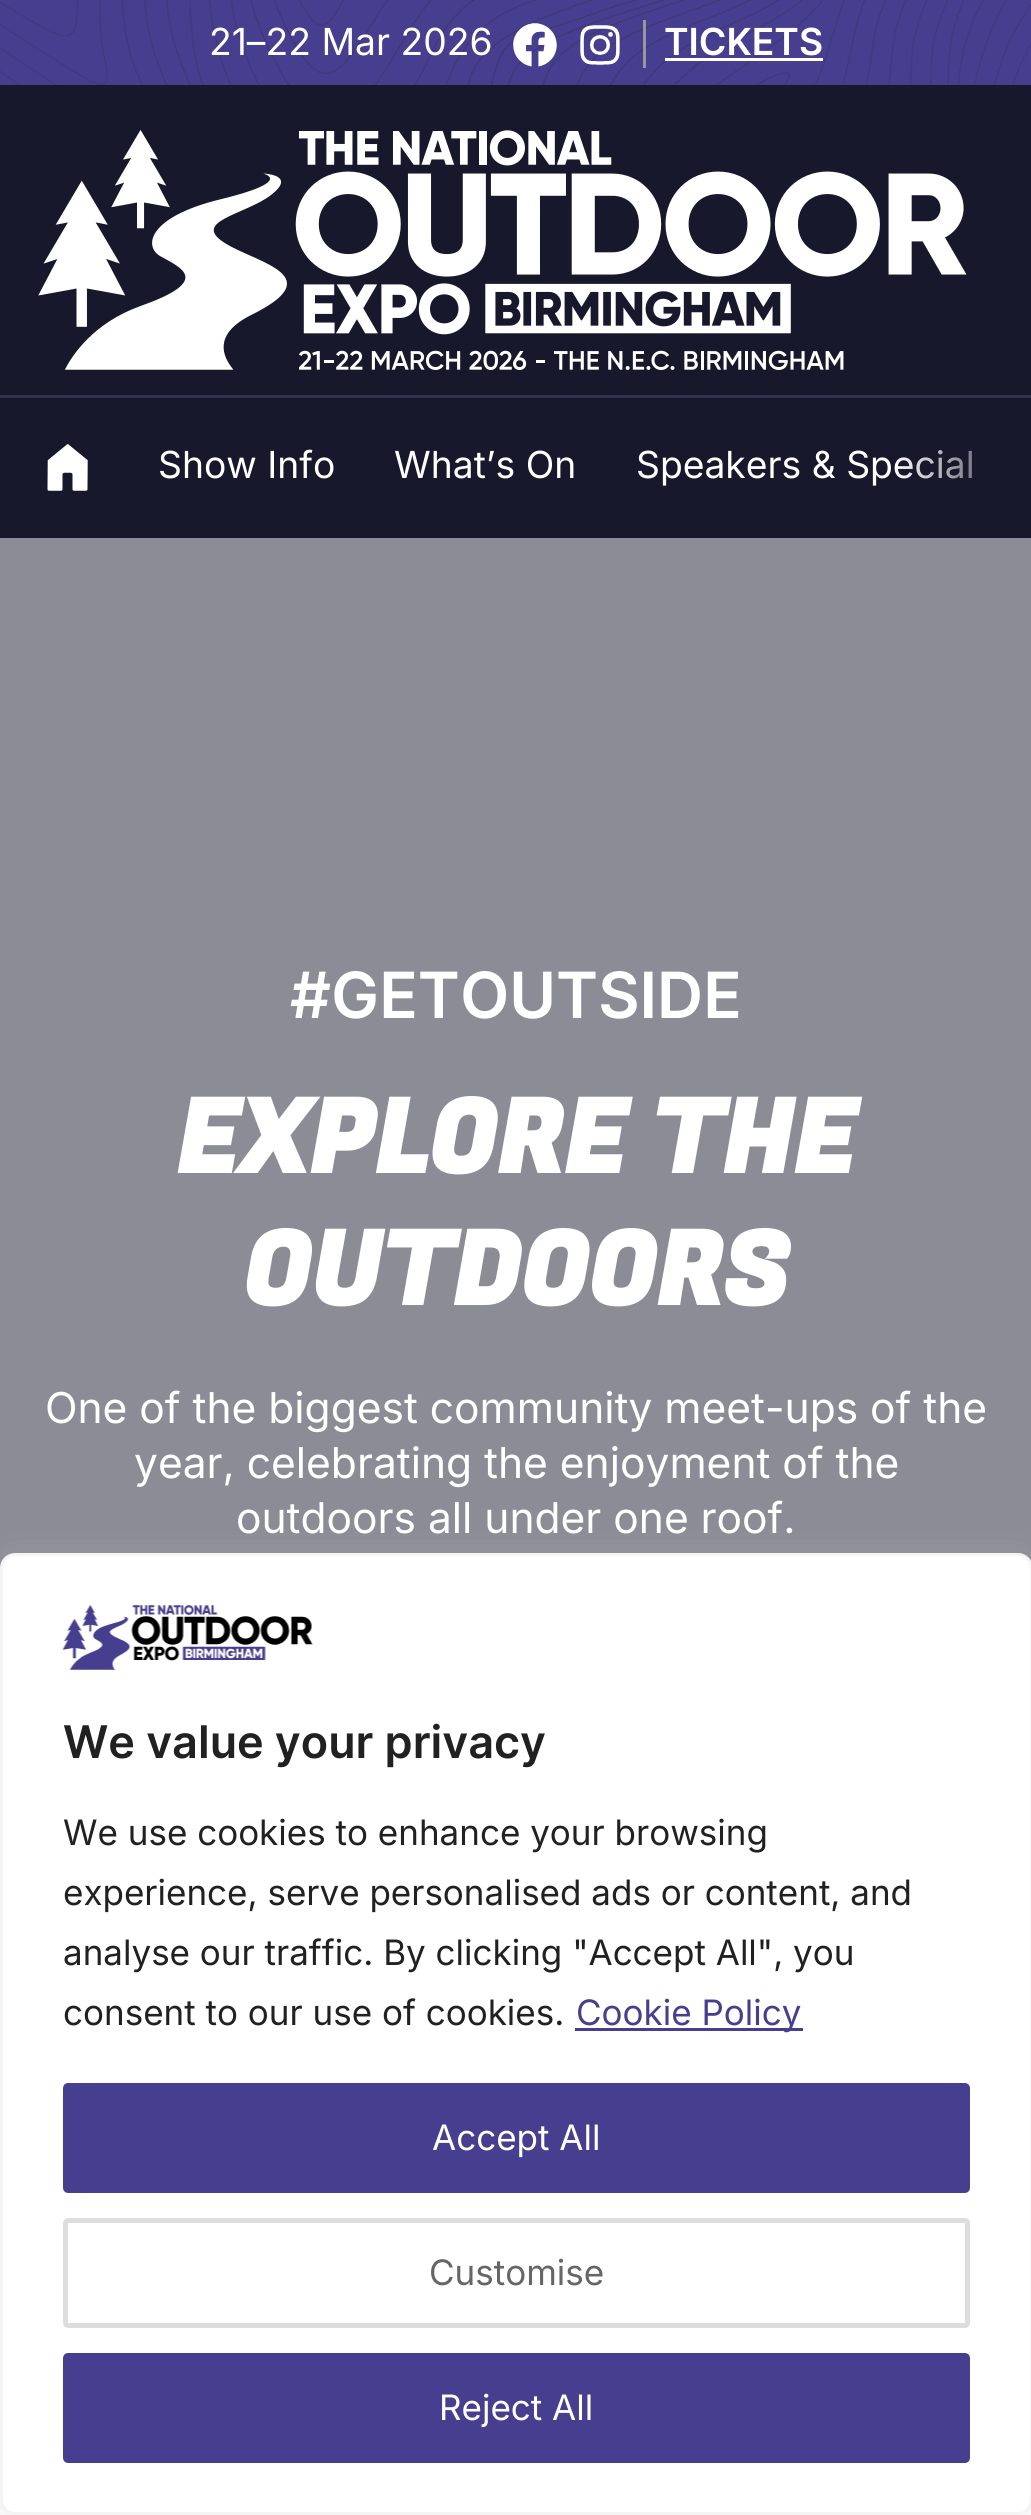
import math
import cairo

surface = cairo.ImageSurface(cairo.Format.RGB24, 1031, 2515)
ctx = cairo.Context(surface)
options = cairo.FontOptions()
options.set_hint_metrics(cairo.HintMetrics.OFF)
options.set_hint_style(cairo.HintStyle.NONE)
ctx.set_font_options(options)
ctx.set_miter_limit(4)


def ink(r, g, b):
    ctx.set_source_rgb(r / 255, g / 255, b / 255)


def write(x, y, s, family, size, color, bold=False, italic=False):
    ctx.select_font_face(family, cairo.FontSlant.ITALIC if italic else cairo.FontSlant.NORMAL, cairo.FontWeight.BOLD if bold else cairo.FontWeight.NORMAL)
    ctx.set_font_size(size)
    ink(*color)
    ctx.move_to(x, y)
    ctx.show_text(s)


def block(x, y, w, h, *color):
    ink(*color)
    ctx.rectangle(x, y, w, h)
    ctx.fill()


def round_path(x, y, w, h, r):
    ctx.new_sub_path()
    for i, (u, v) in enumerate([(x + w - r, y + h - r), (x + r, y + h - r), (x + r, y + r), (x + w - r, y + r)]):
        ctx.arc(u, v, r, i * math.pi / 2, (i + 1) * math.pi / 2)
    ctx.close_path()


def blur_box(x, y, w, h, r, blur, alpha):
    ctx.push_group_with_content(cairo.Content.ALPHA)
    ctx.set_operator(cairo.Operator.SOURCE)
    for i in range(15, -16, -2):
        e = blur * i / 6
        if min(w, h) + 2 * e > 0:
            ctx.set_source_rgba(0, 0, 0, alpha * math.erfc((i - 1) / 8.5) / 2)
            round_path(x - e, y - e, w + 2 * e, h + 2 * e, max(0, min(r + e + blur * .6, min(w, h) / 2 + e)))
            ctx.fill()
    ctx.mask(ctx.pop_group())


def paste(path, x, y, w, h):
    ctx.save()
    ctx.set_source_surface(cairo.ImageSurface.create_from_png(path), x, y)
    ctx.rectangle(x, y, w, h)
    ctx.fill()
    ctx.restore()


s1 = dict(family="Inter", size=37.25, color=(255, 255, 255))
s2 = dict(family="Inter SemiBold", size=37.25, color=(255, 255, 255))
s3 = dict(family="Inter SemiBold", size=63.75, color=(255, 255, 255))
s4 = dict(family="Fugaz One", size=102, color=(255, 255, 255), bold=True)
s5 = dict(family="Inter", size=42.5, color=(255, 255, 255))
s6 = dict(family="Inter SemiBold", size=45, color=(33, 33, 33))
s7 = dict(family="Inter", size=35, color=(33, 33, 33))
s8 = dict(family="Inter", size=35, color=(70, 62, 142))
s9 = dict(family="Inter", size=35, color=(255, 255, 255))
s10 = dict(family="Inter", size=35, color=(102, 102, 102))

ink(255, 255, 255)
ctx.paint()
block(0, 0, 1031, 85, 70, 62, 142)
paste("pic1.png", 0, 0, 1031, 85)
write(209, 55, "21–22 Mar 2026", **s1)
paste("pic2.png", 513, 23, 44, 44)
paste("pic3.png", 580, 25, 40, 40)
block(643, 20, 3, 48, 151, 151, 151)
write(664, 55, "TICKETS", **s2)
block(665, 58, 158, 3, 255, 255, 255)
block(0, 85, 1031, 310, 24, 24, 44)
paste("pic4.png", 38, 130, 929, 240)
block(0, 398, 1031, 140, 24, 24, 44)
block(0, 395, 1031, 3, 50, 50, 78)
paste("pic5.png", 47, 444, 41, 47)
write(158, 478, "Show Info", **s1)
write(394, 478, "What’s On", **s1)
write(636, 478, "Speakers & Special", **s1)
gradient = cairo.LinearGradient(895, 468, 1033, 468)
gradient.add_color_stop_rgba(0, 0.094, 0.094, 0.173, 0)
gradient.add_color_stop_rgba(1, 0.094, 0.094, 0.173, 1)
ctx.set_source(gradient)
ctx.rectangle(898, 450, 74, 29)
ctx.fill()
block(0, 538, 1031, 1030, 140, 140, 150)
write(290, 1018, "#GETOUTSIDE", **s3)
write(176, 1173, "EXPLORE THE", **s4)
write(243, 1305, "OUTDOORS", **s4)
write(45, 1423, "One of the biggest community meet-ups of the", **s5)
write(134, 1478, "year, celebrating the enjoyment of the", **s5)
write(236, 1533, "outdoors all under one roof.", **s5)
ink(172, 171, 171)
blur_box(0, 1550, 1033, 963, 15, 12.5, 0.3)
ink(255, 255, 255)
round_path(1.5, 1554.5, 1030, 959, 13.5)
ctx.fill_preserve()
ink(244, 244, 244)
ctx.set_line_width(3)
ctx.stroke()
paste("pic6.png", 62, 1605, 251, 65)
write(63, 1758, "We value your privacy", **s6)
write(63, 1845, "We use cookies to enhance your browsing", **s7)
write(63, 1905, "experience, serve personalised ads or content, and", **s7)
write(63, 1965, "analyse our traffic. By clicking \"Accept All\", you", **s7)
write(63, 2025, "consent to our use of cookies.", **s7)
block(575, 2028, 228, 3, 70, 62, 142)
write(576, 2025, "Cookie Policy", **s8)
round_path(65.5, 2085.5, 902, 105, 2.5)
ctx.fill_preserve()
ctx.set_line_width(5)
ctx.stroke()
write(432, 2150, "Accept All", **s9)
round_path(65.5, 2220.5, 902, 105, 2.5)
ink(221, 221, 221)
ctx.stroke()
write(429, 2285, "Customise", **s10)
ink(70, 62, 142)
round_path(65.5, 2355.5, 902, 105, 2.5)
ctx.fill_preserve()
ctx.stroke()
write(439, 2420, "Reject All", **s9)
surface.write_to_png("screenshot.png")
